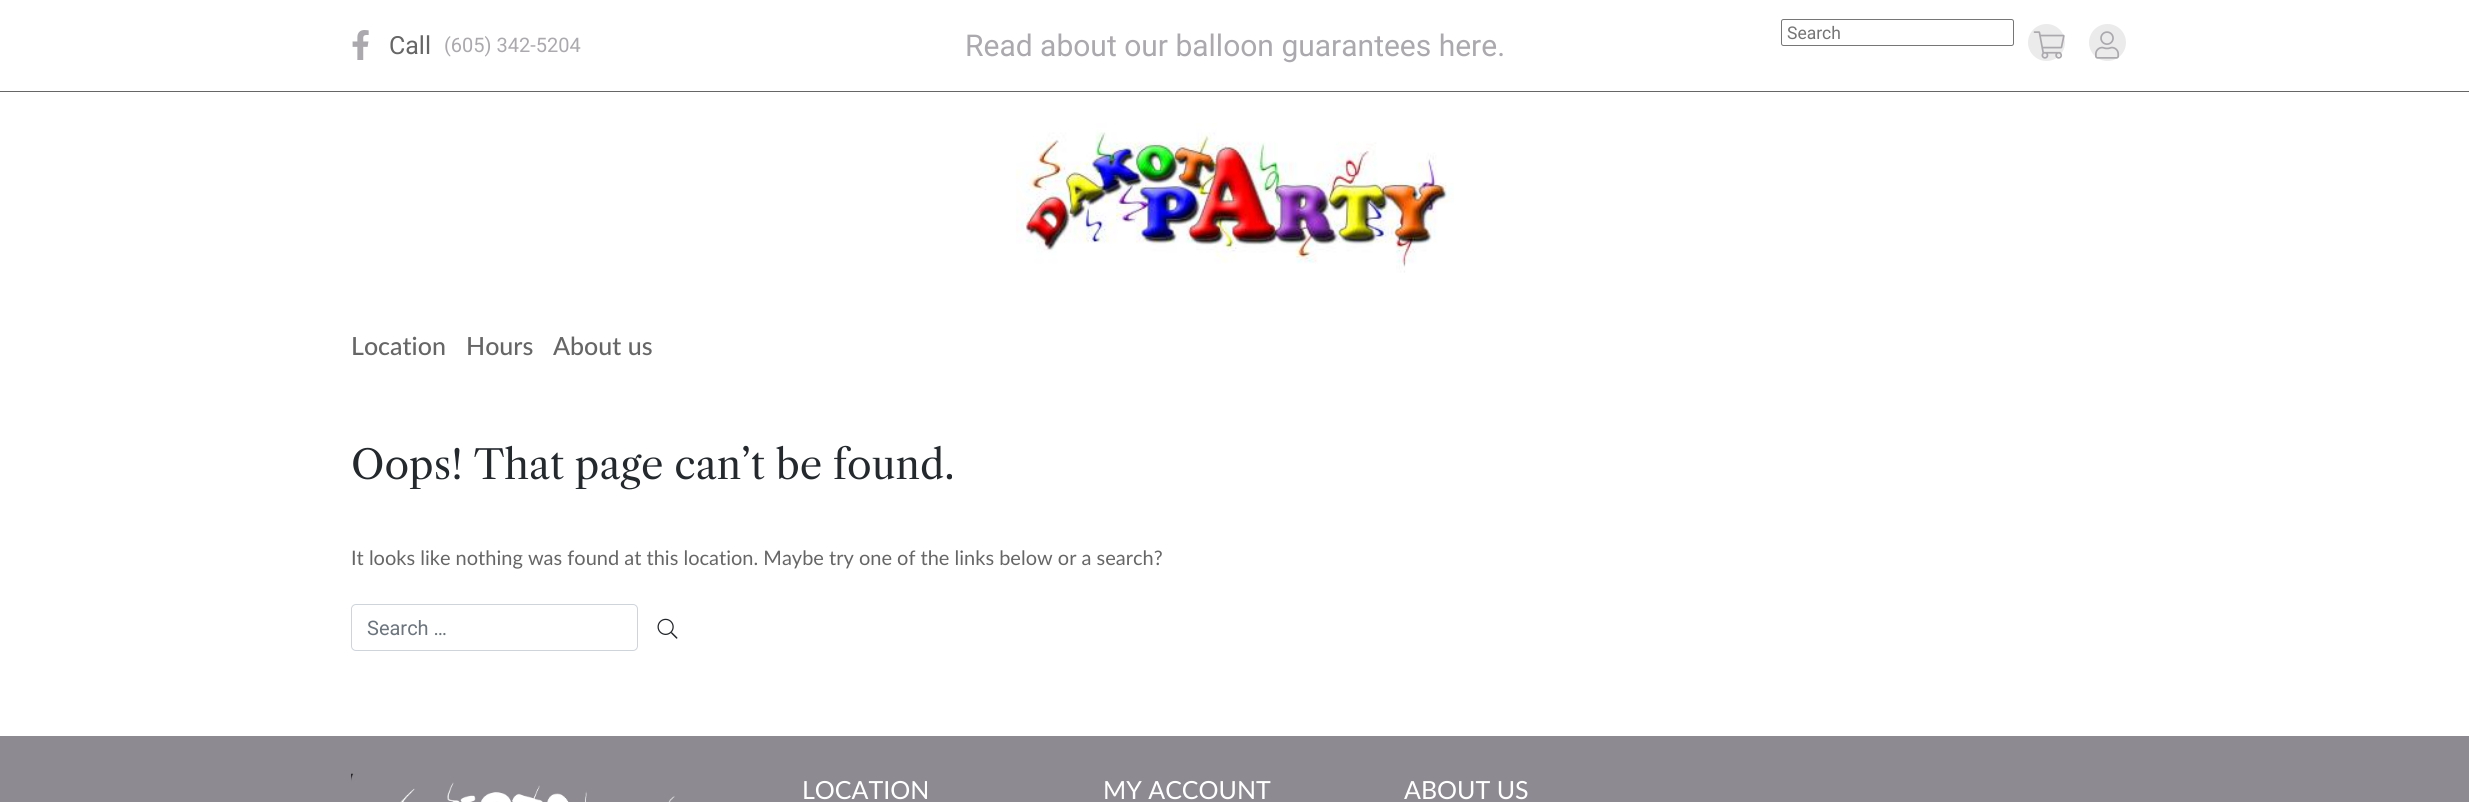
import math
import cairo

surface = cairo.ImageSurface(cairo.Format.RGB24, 2469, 802)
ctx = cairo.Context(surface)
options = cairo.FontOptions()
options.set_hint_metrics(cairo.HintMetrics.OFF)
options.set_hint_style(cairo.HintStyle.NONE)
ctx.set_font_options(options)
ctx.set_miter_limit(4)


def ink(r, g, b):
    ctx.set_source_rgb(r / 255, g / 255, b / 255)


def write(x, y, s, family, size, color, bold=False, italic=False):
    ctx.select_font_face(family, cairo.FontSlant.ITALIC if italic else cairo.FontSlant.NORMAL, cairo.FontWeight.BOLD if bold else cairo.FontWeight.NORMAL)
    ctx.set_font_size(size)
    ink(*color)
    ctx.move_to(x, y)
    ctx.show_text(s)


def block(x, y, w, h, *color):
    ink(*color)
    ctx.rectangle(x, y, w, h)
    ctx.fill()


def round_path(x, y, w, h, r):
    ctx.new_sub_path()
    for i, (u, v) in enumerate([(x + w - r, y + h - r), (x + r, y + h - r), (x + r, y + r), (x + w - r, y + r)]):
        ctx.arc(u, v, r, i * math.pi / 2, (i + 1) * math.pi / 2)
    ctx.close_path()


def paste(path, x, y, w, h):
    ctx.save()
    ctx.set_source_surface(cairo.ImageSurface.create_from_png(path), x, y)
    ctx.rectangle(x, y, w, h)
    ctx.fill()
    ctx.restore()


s1 = dict(family="Roboto", size=25, color=(102, 102, 102))
s2 = dict(family="Roboto", size=20, color=(171, 169, 173))
s3 = dict(family="Roboto", size=30, color=(171, 169, 173))
s4 = dict(family="Roboto", size=17.5, color=(117, 117, 117))
s5 = dict(family="Lato Medium", size=25, color=(102, 102, 102))
s6 = dict(family="Libre Caslon Text", size=40, color=(36, 41, 46))
s7 = dict(family="Lato", size=20, color=(102, 102, 102))
s8 = dict(family="Roboto", size=20, color=(108, 117, 125))
s9 = dict(family="Lato", size=25, color=(255, 255, 255))

ink(255, 255, 255)
ctx.paint()
block(0, 91, 2469, 1, 102, 102, 102)
paste("pic1.png", 352, 30, 17, 30)
write(389, 54, "Call", **s1)
write(444, 52, "(605) 342-5204", **s2)
write(965, 56, "Read about our balloon guarantees here.", **s3)
round_path(1781.5, 19.5, 232, 26, 2)
ink(118, 118, 118)
ctx.set_line_width(1)
ctx.stroke()
write(1787, 39, "Search", **s4)
ink(235, 235, 235)
ctx.new_path()
ctx.arc(2046.5, 42.5, 18.5, 0, 2 * math.pi)
ctx.fill()
paste("pic2.png", 2033, 31, 32, 28)
ctx.arc(2107.5, 42.5, 18.5, 0, 2 * math.pi)
ctx.fill()
paste("pic3.png", 2095, 31, 25, 28)
paste("pic4.png", 1016, 123, 438, 150)
write(351, 355, "Location", **s5)
write(466, 355, "Hours", **s5)
write(553, 355, "About us", **s5)
write(351, 479, "Oops! That page can’t be found.", **s6)
write(351, 565, "It looks like nothing was found at this location. Maybe try one of the links below or a search?", **s7)
round_path(351.5, 604.5, 286, 46, 4.5)
ink(206, 212, 218)
ctx.stroke()
write(367, 635, "Search …", **s8)
paste("pic5.png", 657, 618, 21, 21)
block(0, 736, 2469, 66, 142, 138, 145)
paste("pic6.png", 351, 773, 324, 29)
write(802, 799, "LOCATION", **s9)
write(1103, 799, "MY ACCOUNT", **s9)
write(1404, 799, "ABOUT US", **s9)
surface.write_to_png("screenshot.png")
